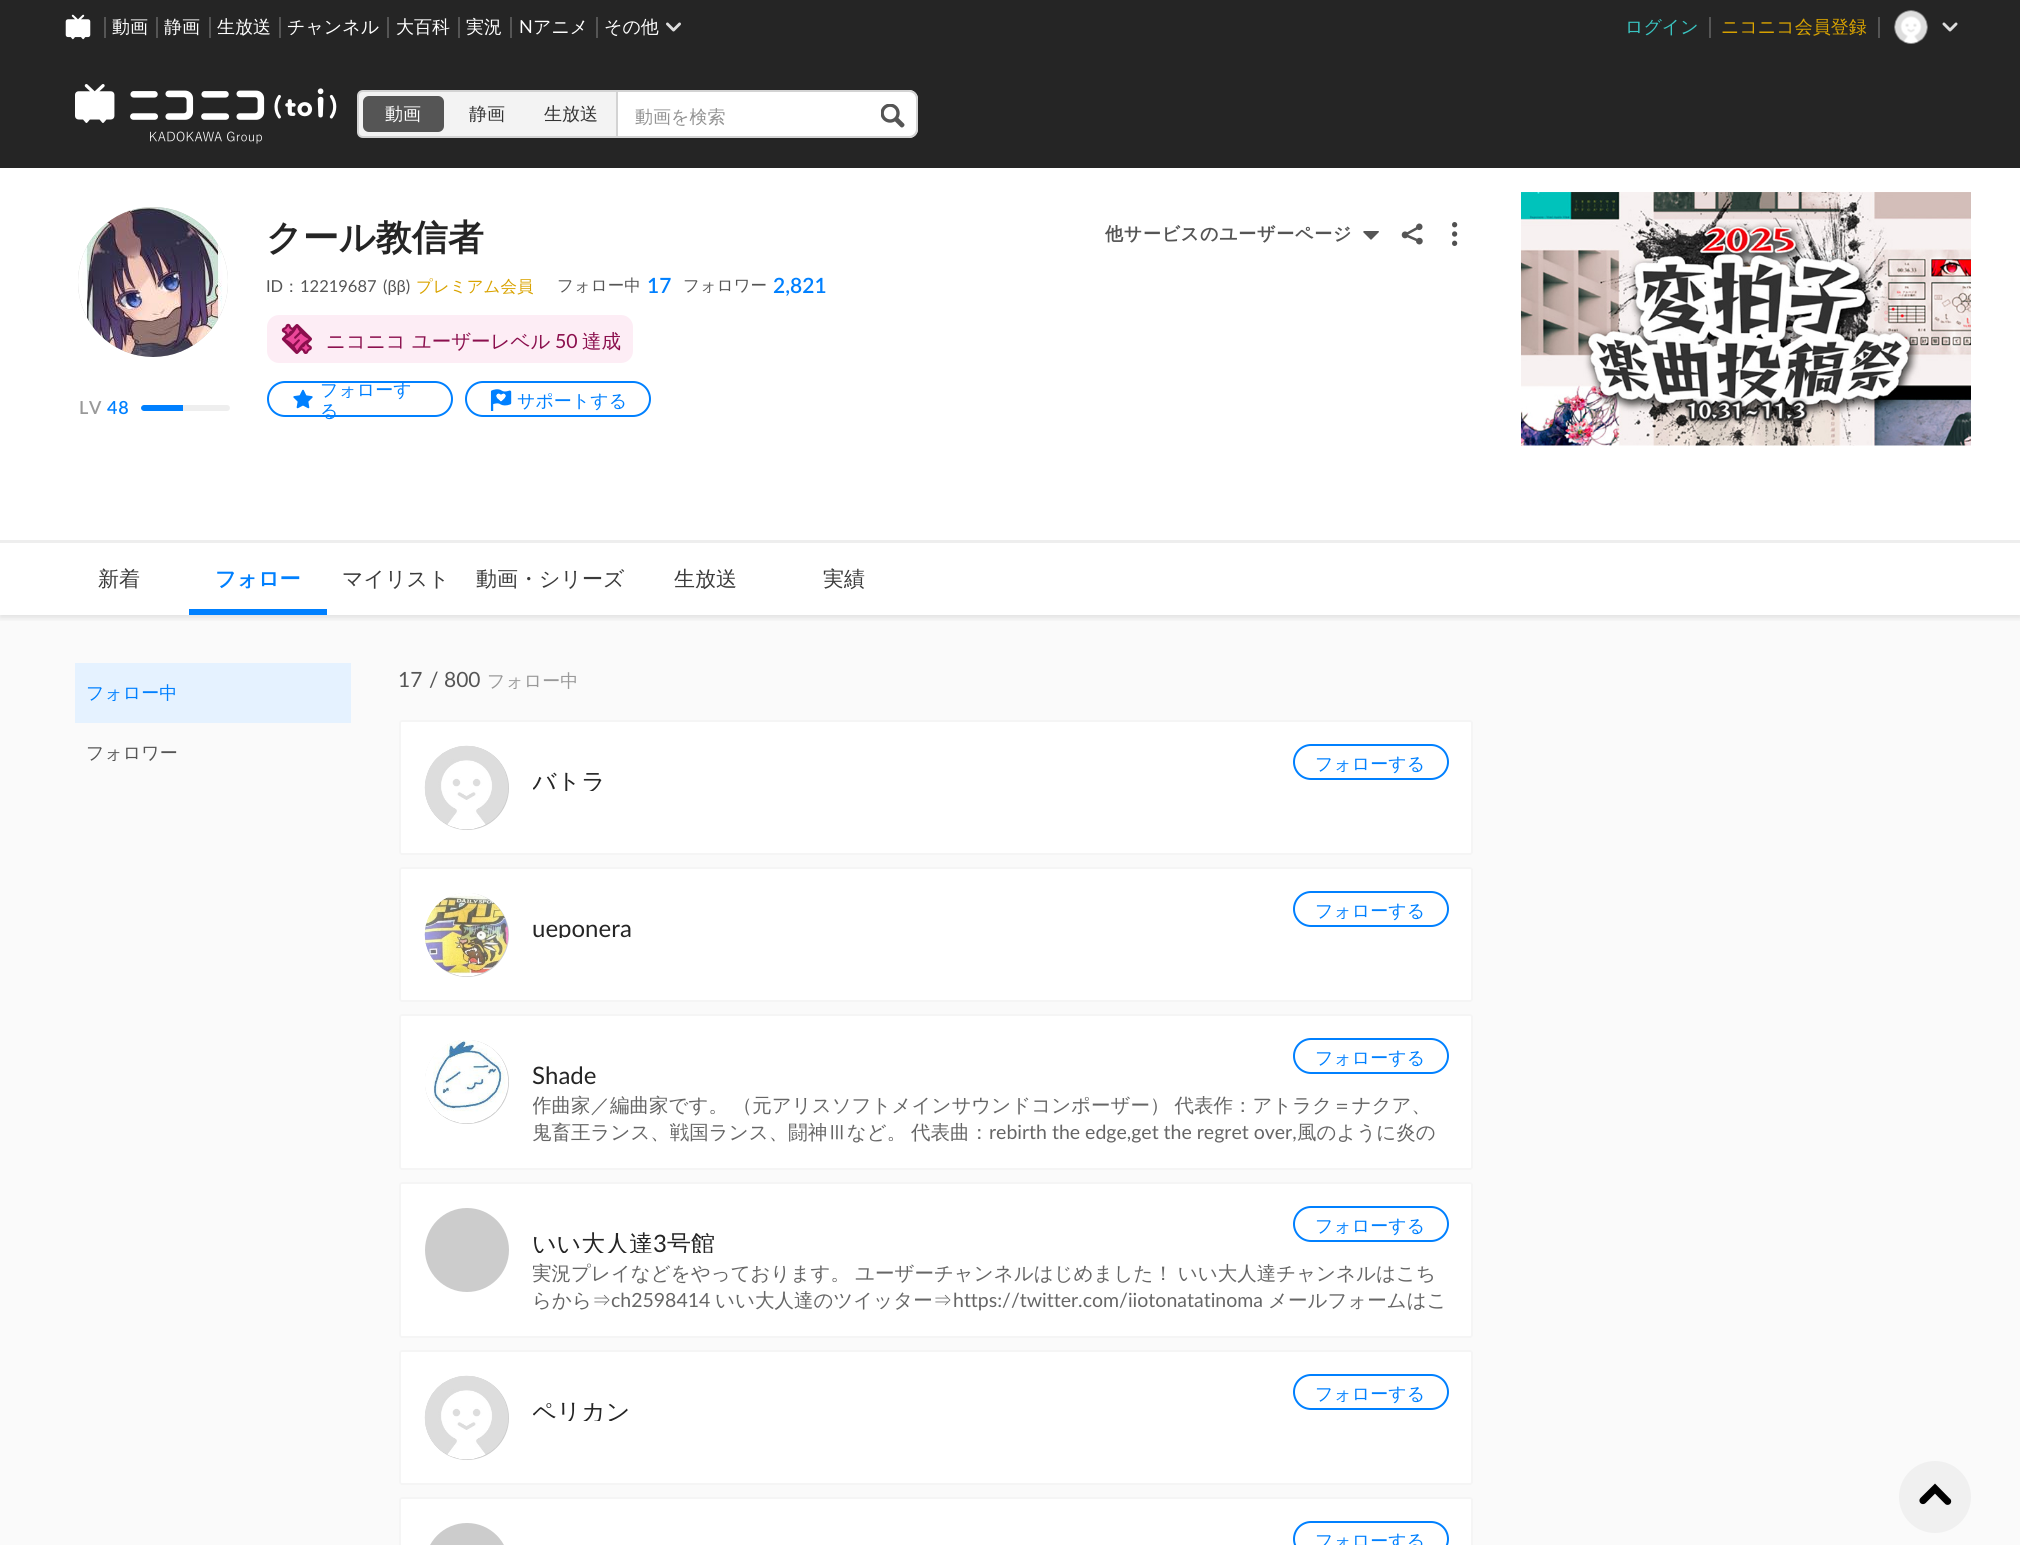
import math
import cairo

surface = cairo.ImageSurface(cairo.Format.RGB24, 2020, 1545)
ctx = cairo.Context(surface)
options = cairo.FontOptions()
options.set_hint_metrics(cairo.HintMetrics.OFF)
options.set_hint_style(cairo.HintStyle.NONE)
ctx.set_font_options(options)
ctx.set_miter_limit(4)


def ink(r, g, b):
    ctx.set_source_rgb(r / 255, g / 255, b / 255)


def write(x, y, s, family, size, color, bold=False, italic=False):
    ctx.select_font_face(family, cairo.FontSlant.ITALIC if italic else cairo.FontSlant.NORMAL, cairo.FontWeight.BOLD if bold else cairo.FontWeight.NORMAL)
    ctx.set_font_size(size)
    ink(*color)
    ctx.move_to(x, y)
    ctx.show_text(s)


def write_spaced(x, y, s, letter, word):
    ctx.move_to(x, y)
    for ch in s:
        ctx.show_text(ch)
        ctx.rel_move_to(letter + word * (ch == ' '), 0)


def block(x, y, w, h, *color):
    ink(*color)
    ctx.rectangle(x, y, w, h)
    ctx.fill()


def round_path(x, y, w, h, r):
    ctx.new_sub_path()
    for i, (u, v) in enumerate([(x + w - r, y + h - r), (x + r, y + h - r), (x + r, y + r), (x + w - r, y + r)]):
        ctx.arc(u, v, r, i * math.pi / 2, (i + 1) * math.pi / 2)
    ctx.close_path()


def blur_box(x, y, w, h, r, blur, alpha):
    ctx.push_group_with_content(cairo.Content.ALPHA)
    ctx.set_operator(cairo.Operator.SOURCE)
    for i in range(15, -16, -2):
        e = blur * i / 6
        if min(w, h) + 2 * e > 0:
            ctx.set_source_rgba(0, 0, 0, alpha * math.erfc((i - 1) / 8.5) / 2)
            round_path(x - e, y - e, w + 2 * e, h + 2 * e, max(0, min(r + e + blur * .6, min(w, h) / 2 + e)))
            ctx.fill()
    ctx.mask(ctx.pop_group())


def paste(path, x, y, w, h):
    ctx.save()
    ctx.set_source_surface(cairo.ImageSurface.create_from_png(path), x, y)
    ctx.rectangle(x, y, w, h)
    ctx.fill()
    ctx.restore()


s1 = dict(family="WenQuanYi Zen Hei Medium", size=18, color=(255, 255, 255))
s2 = dict(family="Lato", size=18, color=(255, 255, 255))
s3 = dict(family="WenQuanYi Zen Hei Medium", size=18, color=(57, 196, 193))
s4 = dict(family="WenQuanYi Zen Hei Medium", size=18, color=(217, 163, 0))
s5 = dict(family="WenQuanYi Zen Hei Medium", size=18, color=(51, 51, 51))
s6 = dict(family="WenQuanYi Zen Hei Medium", size=18, color=(146, 146, 146))
s7 = dict(family="WenQuanYi Zen Hei", size=36, color=(37, 37, 37), bold=True)
s8 = dict(family="Lato", size=16.5, color=(85, 85, 85))
s9 = dict(family="WenQuanYi Zen Hei Medium", size=16.5, color=(85, 85, 85))
s10 = dict(family="WenQuanYi Zen Hei Medium", size=16.5, color=(217, 163, 0))
s11 = dict(family="Lato SemiBold", size=21, color=(0, 128, 255))
s12 = dict(family="WenQuanYi Zen Hei Medium", size=19.5, color=(139, 15, 77))
s13 = dict(family="Lato", size=19.5, color=(139, 15, 77))
s14 = dict(family="WenQuanYi Zen Hei Medium", size=18, color=(0, 128, 255))
s15 = dict(family="WenQuanYi Zen Hei Medium", size=21, color=(59, 59, 59))
s16 = dict(family="WenQuanYi Zen Hei", size=21, color=(0, 128, 255), bold=True)
s17 = dict(family="WenQuanYi Zen Hei Medium", size=18, color=(85, 85, 85))
s18 = dict(family="Lato", size=21, color=(85, 85, 85))
s19 = dict(family="WenQuanYi Zen Hei Medium", size=18, color=(153, 153, 153))
s20 = dict(family="WenQuanYi Zen Hei Medium", size=24, color=(37, 37, 37))
s21 = dict(family="Lato", size=24, color=(37, 37, 37))
s22 = dict(family="WenQuanYi Zen Hei Medium", size=19.5, color=(102, 102, 102))
s23 = dict(family="Lato", size=19.5, color=(102, 102, 102))

ink(250, 250, 250)
ctx.paint()
block(0, 0, 2020, 168, 37, 37, 37)
paste("pic1.png", 65, 14, 26, 26)
block(104, 17, 2, 21, 85, 85, 85)
write(112, 33, "動画", **s1)
block(156, 17, 2, 21, 85, 85, 85)
write(164, 33, "静画", **s1)
block(209, 17, 2, 21, 85, 85, 85)
write(217, 33, "生放送", **s1)
block(279, 17, 2, 21, 85, 85, 85)
write(287, 33, "チャンネル", **s1)
block(387, 17, 2, 21, 85, 85, 85)
write(396, 33, "大百科", **s1)
block(458, 17, 2, 21, 85, 85, 85)
write(466, 33, "実況", **s1)
block(510, 17, 2, 21, 85, 85, 85)
write(519, 33, "N", **s2)
write(533, 33, "アニメ", **s1)
block(596, 17, 2, 21, 85, 85, 85)
write(604, 33, "その他", **s1)
paste("pic2.png", 666, 22, 15, 10)
write(1625, 33, "ログイン", **s3)
block(1709, 17, 2, 21, 85, 85, 85)
write(1721, 33, "ニコニコ会員登録", **s4)
block(1878, 17, 2, 21, 85, 85, 85)
paste("pic3.png", 1894, 10, 34, 34)
paste("pic4.png", 1942, 22, 16, 10)
paste("pic5.png", 75, 84, 262, 60)
ink(243, 243, 243)
ctx.new_path()
ctx.move_to(363, 91)
ctx.line_to(617, 91)
ctx.line_to(617, 137)
ctx.line_to(363, 137)
ctx.curve_to(360, 137, 358, 135, 358, 132)
ctx.line_to(358, 96)
ctx.curve_to(358, 93, 360, 91, 363, 91)
ctx.close_path()
ctx.fill_preserve()
ink(211, 211, 211)
ctx.stroke()
ink(85, 85, 85)
round_path(363, 96, 81, 36, 6)
ctx.fill()
write(385, 120, "動画", **s1)
write(469, 120, "静画", **s5)
write(544, 120, "生放送", **s5)
ink(255, 255, 255)
ctx.new_path()
ctx.move_to(618, 90)
ctx.line_to(909, 90)
ctx.curve_to(914, 90, 918, 94, 918, 99)
ctx.line_to(918, 129)
ctx.curve_to(918, 134, 914, 138, 909, 138)
ctx.line_to(618, 138)
ctx.close_path()
ctx.fill()
ink(211, 211, 211)
ctx.set_fill_rule(cairo.FillRule.EVEN_ODD)
ctx.new_path()
ctx.move_to(618, 90)
ctx.line_to(909, 90)
ctx.curve_to(914, 90, 918, 94, 918, 99)
ctx.line_to(918, 129)
ctx.curve_to(918, 134, 914, 138, 909, 138)
ctx.line_to(618, 138)
ctx.close_path()
ctx.move_to(618, 92)
ctx.line_to(909, 92)
ctx.curve_to(913, 92, 916, 95, 916, 99)
ctx.line_to(916, 129)
ctx.curve_to(916, 133, 913, 136, 909, 136)
ctx.line_to(618, 136)
ctx.close_path()
ctx.fill()
write(635, 123, "動画を検索", **s6)
paste("pic6.png", 881, 104, 24, 24)
block(0, 168, 2020, 372, 255, 255, 255)
ink(204, 204, 204)
ctx.arc(153, 282, 75, 0, 2 * math.pi)
ctx.fill()
paste("pic7.png", 78, 207, 150, 150)
ctx.select_font_face("Lato SemiBold")
ink(153, 153, 153)
write_spaced(79, 414, "LV", 0.75, 0)
ink(0, 128, 255)
write_spaced(107, 414, "48", 0.75, 0)
ink(238, 238, 238)
round_path(141, 405, 89, 6, 3)
ctx.fill()
ink(0, 128, 255)
ctx.new_path()
ctx.move_to(144, 405)
ctx.line_to(183, 405)
ctx.line_to(183, 411)
ctx.line_to(144, 411)
ctx.curve_to(142.5, 411, 141, 409.5, 141, 408)
ctx.curve_to(141, 406.5, 142.5, 405, 144, 405)
ctx.close_path()
ctx.fill()
write(266, 250, "クール教信者", **s7)
ctx.set_font_size(18)
ink(85, 85, 85)
write_spaced(1105, 240, "他サービスのユーザーページ", 0.75, 0)
paste("pic8.png", 1363, 231, 16, 9)
paste("pic9.png", 1401, 223, 22, 22)
paste("pic10.png", 1452, 222, 6, 24)
write(266, 292, "ID", **s8)
write(283, 292, "：", **s9)
write(300, 292, "12219687", **s8)
write(383, 292, "(ββ)", **s8)
write(416, 292, "プレミアム会員", **s10)
write(557, 291, "フォロー中", **s9)
write(647, 293, "17", **s11)
write(683, 291, "フォロワー", **s9)
write(773, 293, "2,821", **s11)
ink(253, 237, 245)
round_path(267, 315, 366, 48, 12)
ctx.fill()
paste("pic11.png", 281, 323, 31, 31)
write(326, 348, "ニコニコ ユーザーレベル", **s12)
write(555, 348, "50", **s13)
write(582, 348, "達成", **s12)
round_path(268, 382, 184, 34, 17)
ink(0, 128, 255)
ctx.stroke()
paste("pic12.png", 293, 389, 20, 20)
write(320, 396, "フォローす", **s14)
write(320, 417, "る", **s14)
round_path(466, 382, 184, 34, 17)
ctx.stroke()
paste("pic13.png", 490, 389, 22, 22)
write(517, 407, "サポートする", **s14)
block(0, 540, 2020, 3, 238, 238, 238)
paste("pic14.png", 1521, 192, 450, 254)
block(0, 543, 2020, 72, 255, 255, 255)
ctx.save()
ctx.set_fill_rule(cairo.FillRule.WINDING)
ctx.rectangle(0, 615, 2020, 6)
ctx.clip()
ink(0, 0, 0)
blur_box(0, 546, 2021, 72, 0, 3, 0.1)
ctx.restore()
write(98, 586, "新着", **s15)
write(215, 586, "フォロー", **s16)
write(342, 586, "マイリスト", **s15)
write(476, 586, "動画・シリーズ", **s15)
write(674, 586, "生放送", **s15)
write(823, 586, "実績", **s15)
block(189, 609, 138, 6, 0, 128, 255)
block(75, 663, 276, 60, 229, 242, 255)
write(86, 699, "フォロー中", **s14)
write(86, 759, "フォロワー", **s17)
write(398, 687, "17", **s18)
write(429, 687, "/", **s18)
write(444, 687, "800", **s18)
write(487, 687, "フォロー中", **s19)
ink(255, 255, 255)
round_path(400, 721, 1072, 133, 2)
ctx.fill_preserve()
ink(245, 245, 245)
ctx.stroke()
round_path(1294, 745, 154, 34, 17)
ink(0, 128, 255)
ctx.stroke()
write(1315, 770, "フォローする", **s14)
ink(204, 204, 204)
ctx.new_path()
ctx.arc(467, 788, 42, 0, 2 * math.pi)
ctx.fill()
paste("pic15.png", 424, 745, 85, 85)
ctx.save()
ctx.set_fill_rule(cairo.FillRule.WINDING)
ctx.rectangle(533, 764, 759, 27)
ctx.clip()
write(532, 790, "バトラ", **s20)
ctx.restore()
ink(255, 255, 255)
round_path(400, 868, 1072, 133, 2)
ctx.fill_preserve()
ink(245, 245, 245)
ctx.stroke()
round_path(1294, 892, 154, 34, 17)
ink(0, 128, 255)
ctx.stroke()
write(1315, 917, "フォローする", **s14)
ink(204, 204, 204)
ctx.new_path()
ctx.arc(467, 935, 42, 0, 2 * math.pi)
ctx.fill()
paste("pic16.png", 424, 893, 85, 84)
ctx.save()
ctx.set_fill_rule(cairo.FillRule.WINDING)
ctx.rectangle(533, 911, 759, 27)
ctx.clip()
write(532, 937, "ueponera", **s21)
ctx.restore()
ink(255, 255, 255)
round_path(400, 1015, 1072, 154, 2)
ctx.fill_preserve()
ink(245, 245, 245)
ctx.stroke()
round_path(1294, 1039, 154, 34, 17)
ink(0, 128, 255)
ctx.stroke()
write(1315, 1064, "フォローする", **s14)
ink(204, 204, 204)
ctx.new_path()
ctx.arc(467, 1082, 42, 0, 2 * math.pi)
ctx.fill()
paste("pic17.png", 425, 1040, 84, 84)
write(532, 1084, "Shade", **s21)
ctx.save()
ctx.set_fill_rule(cairo.FillRule.WINDING)
ctx.rectangle(533, 1091, 915, 54)
ctx.clip()
ctx.select_font_face("WenQuanYi Zen Hei Medium")
ctx.set_font_size(19.5)
ink(102, 102, 102)
write_spaced(532, 1112, "作曲家／編曲家です。 （元アリスソフトメインサウンドコンポーザー） 代表作：アトラク＝ナクア、", 0, -1)
ctx.restore()
write(532, 1139, "鬼畜王ランス、戦国ランス、闘神Ⅲなど。", **s22)
write(911, 1139, "代表曲：", **s22)
write(989, 1139, "rebirth the edge,get the regret over,", **s23)
write(1297, 1139, "風のように炎の", **s22)
ink(255, 255, 255)
round_path(400, 1183, 1072, 154, 2)
ctx.fill_preserve()
ink(245, 245, 245)
ctx.stroke()
round_path(1294, 1207, 154, 34, 17)
ink(0, 128, 255)
ctx.stroke()
write(1315, 1232, "フォローする", **s14)
ink(204, 204, 204)
ctx.new_path()
ctx.arc(467, 1250, 42, 0, 2 * math.pi)
ctx.fill()
ctx.save()
ctx.set_fill_rule(cairo.FillRule.WINDING)
ctx.rectangle(533, 1226, 759, 27)
ctx.clip()
write(532, 1252, "いい大人達", **s20)
ctx.restore()
write(653, 1252, "3", **s21)
ctx.save()
ctx.set_fill_rule(cairo.FillRule.WINDING)
ctx.rectangle(533, 1226, 759, 27)
ctx.clip()
write(667, 1252, "号館", **s20)
ctx.restore()
ctx.save()
ctx.set_fill_rule(cairo.FillRule.WINDING)
ctx.rectangle(533, 1259, 915, 54)
ctx.clip()
write(532, 1280, "実況プレイなどをやっております。", **s22)
ctx.restore()
ctx.select_font_face("WenQuanYi Zen Hei Medium")
ctx.set_font_size(19.5)
ink(102, 102, 102)
write_spaced(855, 1280, "ユーザーチャンネルはじめました！ いい大人達チャンネルはこち", 0, -1)
write(532, 1307, "らから⇒", **s22)
write(611, 1307, "ch2598414", **s23)
write(715, 1307, "いい大人達のツイッター⇒", **s22)
write(953, 1307, "https://twitter.com/iiotonatatinoma", **s23)
write(1268, 1307, "メールフォームはこ", **s22)
ink(255, 255, 255)
round_path(400, 1351, 1072, 133, 2)
ctx.fill_preserve()
ink(245, 245, 245)
ctx.stroke()
round_path(1294, 1375, 154, 34, 17)
ink(0, 128, 255)
ctx.stroke()
write(1315, 1400, "フォローする", **s14)
ink(204, 204, 204)
ctx.new_path()
ctx.arc(467, 1418, 42, 0, 2 * math.pi)
ctx.fill()
paste("pic18.png", 424, 1375, 85, 85)
ctx.save()
ctx.set_fill_rule(cairo.FillRule.WINDING)
ctx.rectangle(533, 1394, 759, 27)
ctx.clip()
write(532, 1420, "ペリカン", **s20)
ctx.restore()
ink(255, 255, 255)
round_path(400, 1498, 1072, 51, 2)
ctx.fill_preserve()
ink(245, 245, 245)
ctx.stroke()
ink(204, 204, 204)
round_path(425, 1523, 84, 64, 42)
ctx.fill()
round_path(1294, 1522, 154, 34, 17)
ink(0, 128, 255)
ctx.stroke()
write(1315, 1547, "フォローする", **s14)
ink(240, 240, 240)
ctx.new_path()
ctx.arc(1935, 1497, 36, 0, 2 * math.pi)
ctx.fill()
paste("pic19.png", 1919, 1483, 33, 22)
surface.write_to_png("screenshot.png")
